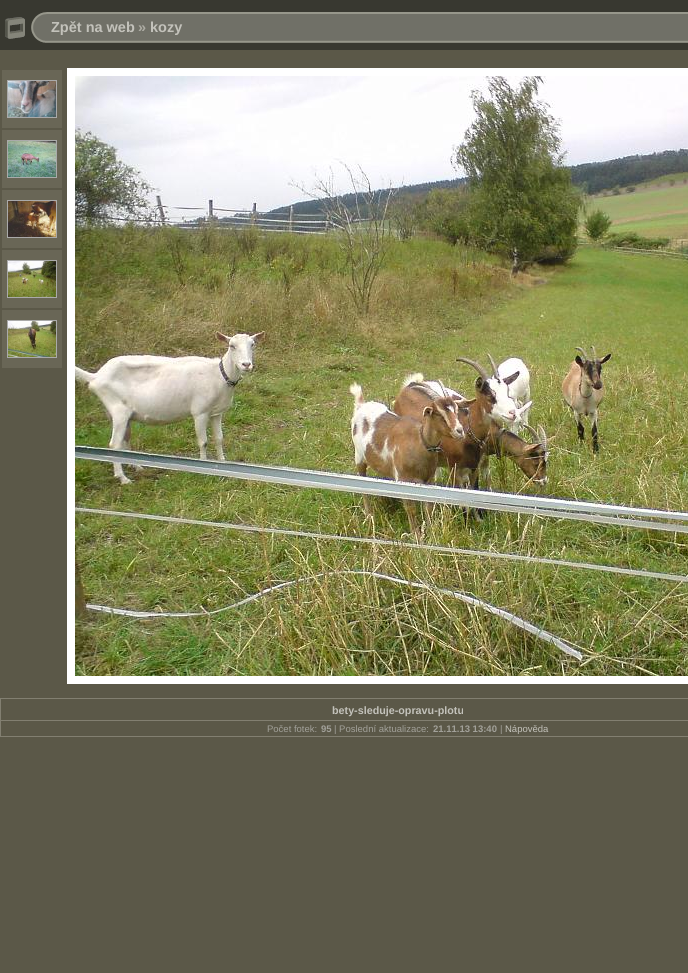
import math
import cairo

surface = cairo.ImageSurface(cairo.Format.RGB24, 688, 973)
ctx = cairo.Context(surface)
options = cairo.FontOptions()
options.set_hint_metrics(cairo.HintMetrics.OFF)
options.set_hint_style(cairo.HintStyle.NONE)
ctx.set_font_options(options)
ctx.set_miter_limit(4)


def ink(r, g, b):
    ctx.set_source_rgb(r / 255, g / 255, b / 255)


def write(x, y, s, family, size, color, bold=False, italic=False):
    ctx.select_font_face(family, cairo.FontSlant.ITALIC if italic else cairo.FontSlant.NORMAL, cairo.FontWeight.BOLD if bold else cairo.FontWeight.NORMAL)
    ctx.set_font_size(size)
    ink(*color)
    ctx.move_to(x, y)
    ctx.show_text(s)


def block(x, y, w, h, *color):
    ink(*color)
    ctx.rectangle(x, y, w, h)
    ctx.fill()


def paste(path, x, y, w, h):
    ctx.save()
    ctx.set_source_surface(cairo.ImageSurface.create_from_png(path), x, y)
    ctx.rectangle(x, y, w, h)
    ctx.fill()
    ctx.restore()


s1 = dict(family="Liberation Sans", size=14.5, color=(195, 194, 187), bold=True)
s2 = dict(family="Liberation Sans", size=14.5, color=(173, 172, 164), bold=True)
s3 = dict(family="Liberation Sans", size=10.75, color=(195, 194, 187), bold=True)
s4 = dict(family="Liberation Sans", size=9.5, color=(162, 161, 154))
s5 = dict(family="Liberation Sans", size=9.5, color=(162, 161, 154), bold=True)
s6 = dict(family="Liberation Sans", size=9.5, color=(195, 194, 187))

ink(91, 88, 72)
ctx.paint()
block(0, 0, 688, 50, 56, 56, 48)
paste("pic1.png", 5, 17, 20, 22)
paste("pic2.png", 31, 12, 20, 31)
paste("pic3.png", 51, 12, 637, 31)
write(51, 32, "Zpět na web", **s1)
write(138, 32, "»", **s2)
write(150, 32, "kozy", **s1)
block(2, 70, 60, 58, 105, 102, 86)
ctx.rectangle(7.5, 80.5, 49, 37)
ink(170, 170, 170)
ctx.set_line_width(1)
ctx.stroke()
paste("pic4.png", 8, 81, 48, 36)
block(2, 130, 60, 58, 105, 102, 86)
ctx.rectangle(7.5, 140.5, 49, 37)
ink(170, 170, 170)
ctx.stroke()
paste("pic5.png", 8, 141, 48, 36)
block(2, 190, 60, 58, 105, 102, 86)
ctx.rectangle(7.5, 200.5, 49, 37)
ink(170, 170, 170)
ctx.stroke()
paste("pic6.png", 8, 201, 48, 36)
block(2, 250, 60, 58, 105, 102, 86)
ctx.rectangle(7.5, 260.5, 49, 37)
ink(170, 170, 170)
ctx.stroke()
paste("pic7.png", 8, 261, 48, 36)
block(2, 310, 60, 58, 105, 102, 86)
ctx.rectangle(7.5, 320.5, 49, 37)
ink(170, 170, 170)
ctx.stroke()
paste("pic8.png", 8, 321, 48, 36)
ctx.rectangle(71, 72, 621, 608)
ink(255, 255, 255)
ctx.set_line_width(8)
ctx.stroke()
paste("pic9.png", 75, 76, 613, 600)
block(0, 698, 688, 1, 130, 127, 113)
block(0, 736, 688, 1, 130, 127, 113)
block(0, 698, 1, 39, 130, 127, 113)
write(332, 714, "bety-sleduje-opravu-plotu", **s3)
block(0, 720, 688, 1, 130, 127, 113)
write(267, 732, "Počet fotek:", **s4)
write(321, 732, "95", **s5)
write(334, 732, "| Poslední aktualizace:", **s4)
write(433, 732, "21.11.13 13:40", **s5)
write(500, 732, "|", **s4)
write(505, 732, "Nápověda", **s6)
surface.write_to_png("screenshot.png")
